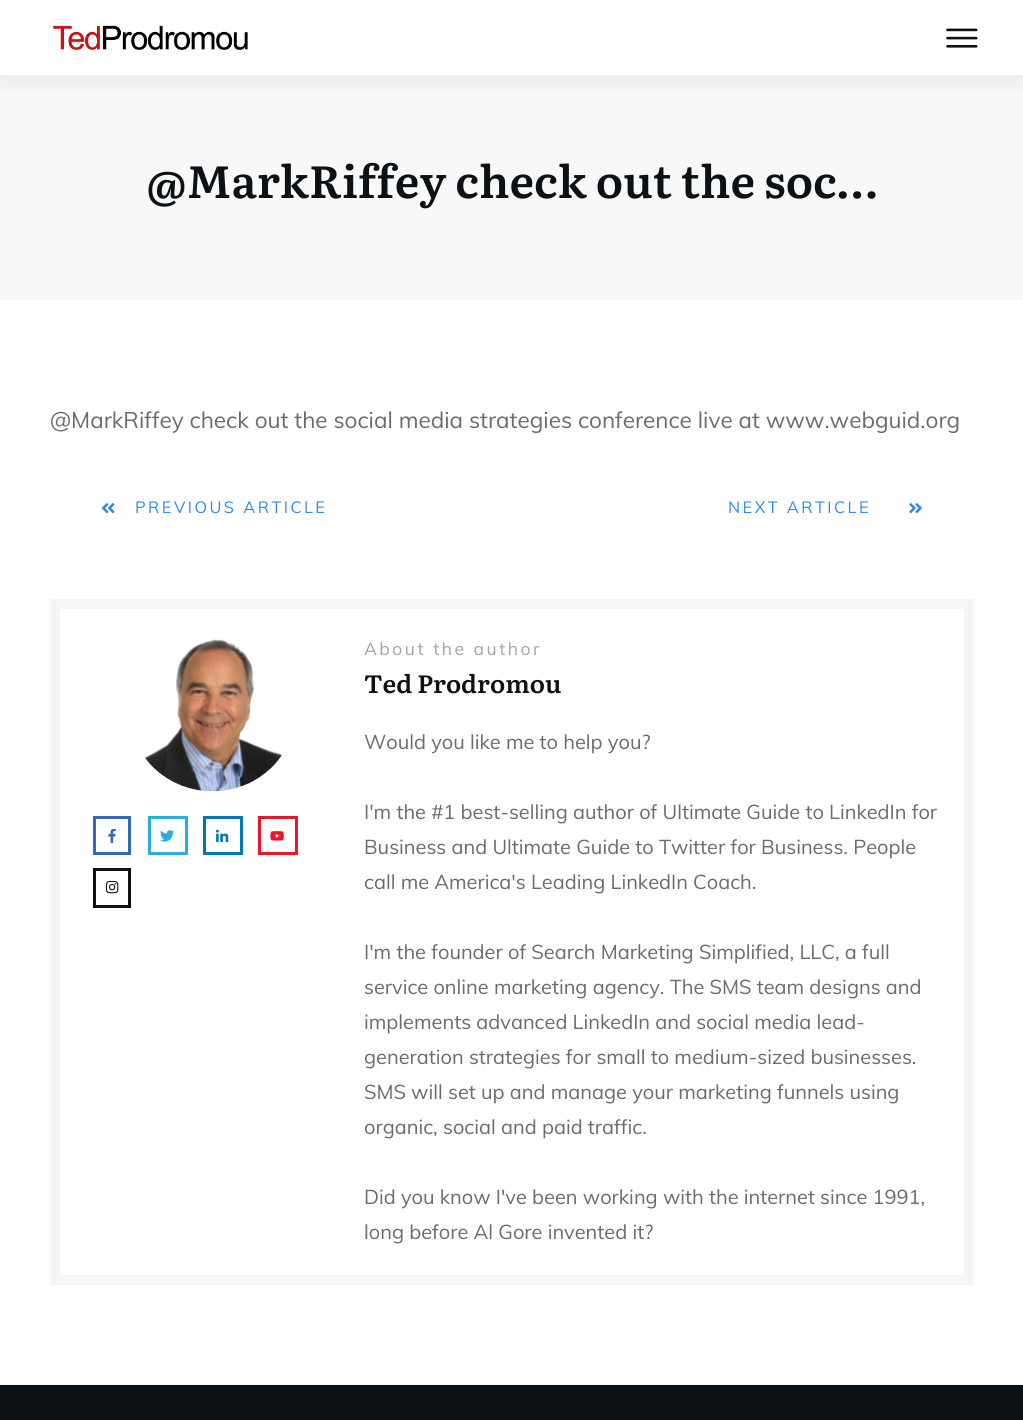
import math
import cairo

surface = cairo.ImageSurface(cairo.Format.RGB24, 1023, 1420)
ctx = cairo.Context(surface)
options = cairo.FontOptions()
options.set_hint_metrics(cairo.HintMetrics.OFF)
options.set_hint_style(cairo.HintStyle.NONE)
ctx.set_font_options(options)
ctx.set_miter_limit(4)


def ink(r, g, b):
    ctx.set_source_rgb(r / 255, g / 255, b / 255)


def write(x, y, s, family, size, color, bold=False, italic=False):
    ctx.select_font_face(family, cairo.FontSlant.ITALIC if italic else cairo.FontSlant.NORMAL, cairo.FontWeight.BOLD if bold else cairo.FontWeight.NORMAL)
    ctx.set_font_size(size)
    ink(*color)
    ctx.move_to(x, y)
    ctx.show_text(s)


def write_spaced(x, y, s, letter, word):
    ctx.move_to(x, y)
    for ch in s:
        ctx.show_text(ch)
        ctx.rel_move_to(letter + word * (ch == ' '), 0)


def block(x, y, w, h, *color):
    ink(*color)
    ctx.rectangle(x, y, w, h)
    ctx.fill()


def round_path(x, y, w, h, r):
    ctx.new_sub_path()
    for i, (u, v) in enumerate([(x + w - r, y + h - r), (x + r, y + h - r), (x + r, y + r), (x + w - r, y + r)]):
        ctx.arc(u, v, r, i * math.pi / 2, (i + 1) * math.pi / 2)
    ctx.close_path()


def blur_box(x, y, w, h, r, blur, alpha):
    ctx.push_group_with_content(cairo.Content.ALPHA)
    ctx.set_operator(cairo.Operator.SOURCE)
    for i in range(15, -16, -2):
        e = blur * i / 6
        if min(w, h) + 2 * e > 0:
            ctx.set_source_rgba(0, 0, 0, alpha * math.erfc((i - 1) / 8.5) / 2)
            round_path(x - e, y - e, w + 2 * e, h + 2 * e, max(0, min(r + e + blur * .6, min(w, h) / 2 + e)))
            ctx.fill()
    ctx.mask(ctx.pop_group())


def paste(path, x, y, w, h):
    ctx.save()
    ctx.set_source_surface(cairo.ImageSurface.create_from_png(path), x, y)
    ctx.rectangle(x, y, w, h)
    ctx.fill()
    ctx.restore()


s1 = dict(family="Literata SemiBold", size=45, color=(12, 17, 21))
s2 = dict(family="Muli", size=22.5, color=(106, 107, 108))
s3 = dict(family="Literata SemiBold", size=25, color=(12, 17, 21))
s4 = dict(family="Muli", size=20, color=(106, 107, 108))

ink(255, 255, 255)
ctx.paint()
block(0, 75, 1023, 225, 248, 248, 248)
ctx.save()
ctx.rectangle(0, 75, 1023, 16)
ctx.clip()
ink(0, 0, 0)
blur_box(0, 3, 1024, 75, 0, 19, 0.08)
ctx.restore()
paste("pic1.png", 53, 25, 195, 25)
paste("pic2.png", 946, 28, 32, 20)
write(146, 198, "@MarkRiffey check out the soc…", **s1)
write(50, 428, "@MarkRiffey check out the social media strategies conference live at www.webguid.org", **s2)
paste("pic3.png", 101, 503, 14, 11)
ctx.set_font_size(16.25)
ink(47, 138, 228)
write_spaced(135, 513, "PREVIOUS ARTICLE", 2.5, 0)
write_spaced(728, 513, "NEXT ARTICLE", 2.5, 0)
paste("pic4.png", 909, 503, 13, 11)
block(50, 599, 924, 686, 246, 246, 246)
block(60, 609, 904, 666, 255, 255, 255)
paste("pic5.png", 144, 639, 138, 153)
ctx.rectangle(94.5, 817.5, 35, 36)
ink(53, 105, 180)
ctx.set_line_width(3)
ctx.stroke()
paste("pic6.png", 108, 829, 8, 14)
ctx.rectangle(149.5, 817.5, 37, 36)
ink(41, 172, 224)
ctx.stroke()
paste("pic7.png", 160, 830, 14, 12)
ctx.rectangle(204.5, 817.5, 37, 36)
ink(1, 119, 181)
ctx.stroke()
paste("pic8.png", 215, 829, 14, 14)
ctx.rectangle(259.5, 817.5, 37, 36)
ink(236, 22, 44)
ctx.stroke()
paste("pic9.png", 270, 831, 14, 10)
ctx.rectangle(94.5, 869.5, 35, 37)
ink(17, 17, 17)
ctx.stroke()
paste("pic10.png", 105, 880, 14, 14)
ctx.set_font_size(17.5)
ink(164, 164, 164)
write_spaced(364, 655, "About the author", 2.5, 0)
write(364, 693, "Ted Prodromou", **s3)
write(364, 749, "Would you like me to help you?", **s4)
write(364, 819, "I'm the #1 best-selling author of Ultimate Guide to LinkedIn for", **s4)
write(364, 854, "Business and Ultimate Guide to Twitter for Business. People", **s4)
write(364, 889, "call me America's Leading LinkedIn Coach.", **s4)
write(364, 959, "I'm the founder of Search Marketing Simplified, LLC, a full", **s4)
write(364, 994, "service online marketing agency. The SMS team designs and", **s4)
write(364, 1029, "implements advanced LinkedIn and social media lead-", **s4)
write(364, 1064, "generation strategies for small to medium-sized businesses.", **s4)
write(364, 1099, "SMS will set up and manage your marketing funnels using", **s4)
write(364, 1134, "organic, social and paid traffic.", **s4)
write(364, 1204, "Did you know I've been working with the internet since 1991,", **s4)
write(364, 1239, "long before Al Gore invented it?", **s4)
block(0, 1385, 1023, 35, 12, 17, 21)
surface.write_to_png("screenshot.png")
